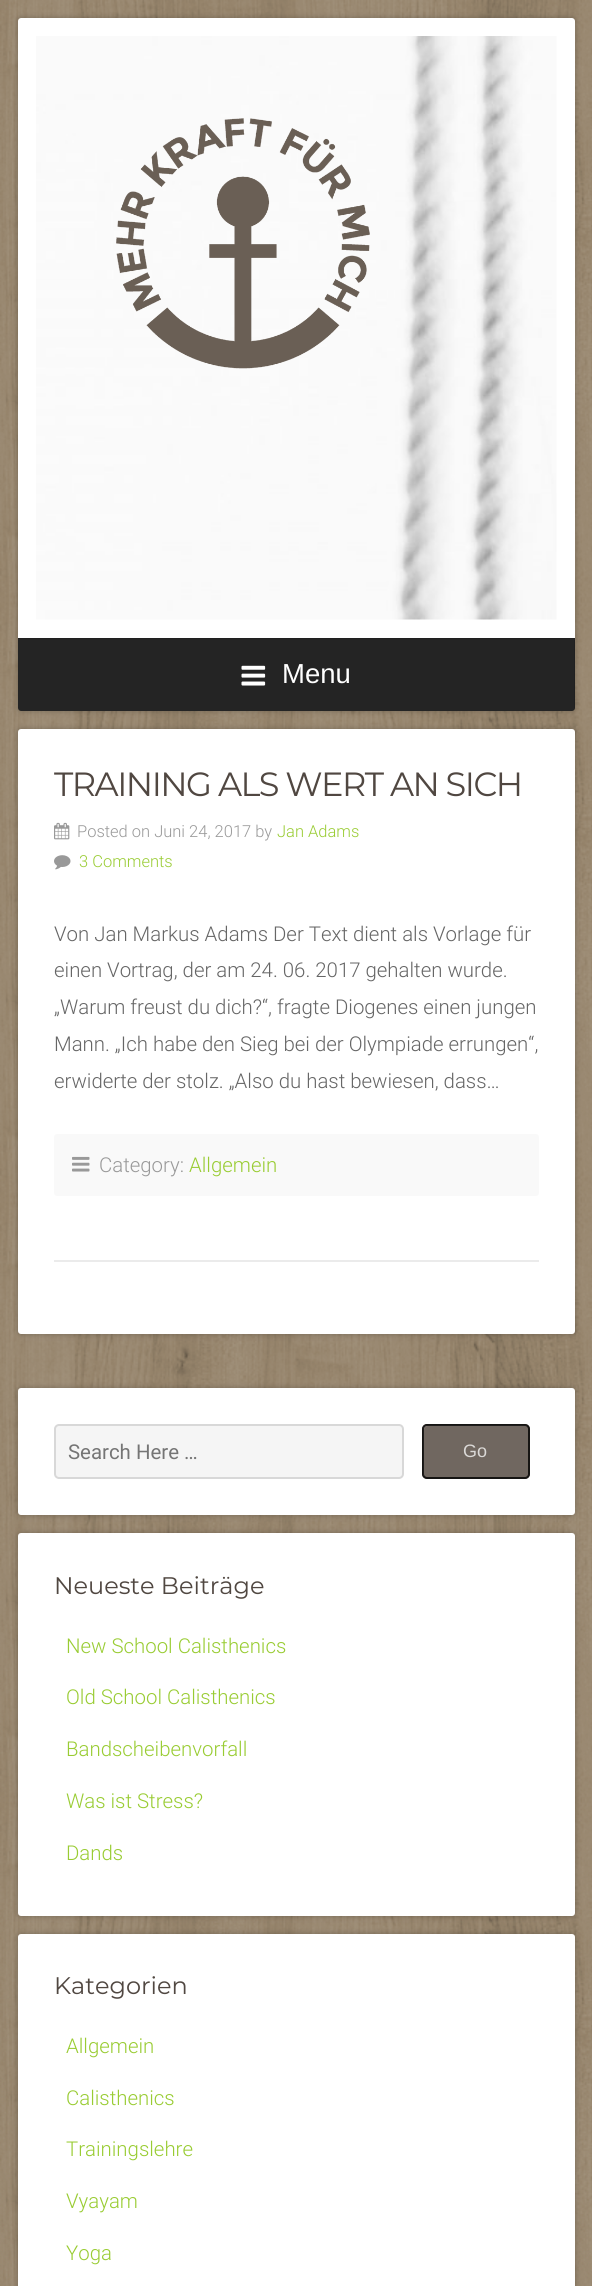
import math
import cairo

surface = cairo.ImageSurface(cairo.Format.RGB24, 592, 2286)
ctx = cairo.Context(surface)
options = cairo.FontOptions()
options.set_hint_metrics(cairo.HintMetrics.OFF)
options.set_hint_style(cairo.HintStyle.NONE)
ctx.set_font_options(options)
ctx.set_miter_limit(4)


def ink(r, g, b):
    ctx.set_source_rgb(r / 255, g / 255, b / 255)


def write(x, y, s, family, size, color, bold=False, italic=False):
    ctx.select_font_face(family, cairo.FontSlant.ITALIC if italic else cairo.FontSlant.NORMAL, cairo.FontWeight.BOLD if bold else cairo.FontWeight.NORMAL)
    ctx.set_font_size(size)
    ink(*color)
    ctx.move_to(x, y)
    ctx.show_text(s)


def write_spaced(x, y, s, letter, word):
    ctx.move_to(x, y)
    for ch in s:
        ctx.show_text(ch)
        ctx.rel_move_to(letter + word * (ch == ' '), 0)


def block(x, y, w, h, *color):
    ink(*color)
    ctx.rectangle(x, y, w, h)
    ctx.fill()


def round_path(x, y, w, h, r):
    ctx.new_sub_path()
    for i, (u, v) in enumerate([(x + w - r, y + h - r), (x + r, y + h - r), (x + r, y + r), (x + w - r, y + r)]):
        ctx.arc(u, v, r, i * math.pi / 2, (i + 1) * math.pi / 2)
    ctx.close_path()


def blur_box(x, y, w, h, r, blur, alpha):
    ctx.push_group_with_content(cairo.Content.ALPHA)
    ctx.set_operator(cairo.Operator.SOURCE)
    for i in range(15, -16, -2):
        e = blur * i / 6
        if min(w, h) + 2 * e > 0:
            ctx.set_source_rgba(0, 0, 0, alpha * math.erfc((i - 1) / 8.5) / 2)
            round_path(x - e, y - e, w + 2 * e, h + 2 * e, max(0, min(r + e + blur * .6, min(w, h) / 2 + e)))
            ctx.fill()
    ctx.mask(ctx.pop_group())


def paste(path, x, y, w, h):
    ctx.save()
    ctx.set_source_surface(cairo.ImageSurface.create_from_png(path), x, y)
    ctx.rectangle(x, y, w, h)
    ctx.fill()
    ctx.restore()


s1 = dict(family="Liberation Sans", size=27.5, color=(255, 255, 255))
s2 = dict(family="Roboto Light", size=16.5, color=(153, 153, 153))
s3 = dict(family="Roboto Light", size=16.5, color=(153, 204, 51))
s4 = dict(family="Roboto Light", size=20.4, color=(102, 102, 102))
s5 = dict(family="Roboto Light", size=20.4, color=(153, 153, 153))
s6 = dict(family="Roboto Light", size=20.4, color=(153, 204, 51))
s7 = dict(family="Roboto", size=20.4, color=(117, 117, 117))
s8 = dict(family="Liberation Sans", size=18, color=(219, 217, 215))
s9 = dict(family="Montserrat", size=24, color=(80, 71, 65))

ink(255, 255, 255)
ctx.paint()
paste("pic1.png", 0, 0, 592, 2286)
ink(0, 0, 0)
blur_box(18, 18, 557, 693, 3, 3, 0.24)
ink(255, 255, 255)
ctx.new_path()
ctx.move_to(21, 18)
ctx.line_to(572, 18)
ctx.curve_to(573.5, 18, 575, 19.5, 575, 21)
ctx.line_to(575, 638)
ctx.line_to(18, 638)
ctx.line_to(18, 21)
ctx.curve_to(18, 19.5, 19.5, 18, 21, 18)
ctx.close_path()
ctx.fill()
paste("pic2.png", 36, 36, 521, 584)
paste("pic3.png", 116, 118, 254, 251)
ink(36, 36, 36)
ctx.new_path()
ctx.move_to(18, 638)
ctx.line_to(575, 638)
ctx.line_to(575, 708)
ctx.curve_to(575, 709.5, 573.5, 711, 572, 711)
ctx.line_to(21, 711)
ctx.curve_to(19.5, 711, 18, 709.5, 18, 708)
ctx.close_path()
ctx.fill()
ctx.set_source_rgba(0, 0, 0, 0.1)
ctx.new_path()
ctx.move_to(18, 639)
ctx.line_to(574, 639)
ctx.line_to(574, 710)
ctx.line_to(575, 708)
ctx.line_to(575, 638)
ctx.line_to(18, 638)
ctx.close_path()
ctx.fill()
paste("pic4.png", 241, 665, 25, 21)
write(282, 683, "Menu", **s1)
ink(0, 0, 0)
blur_box(18, 729, 557, 605, 3, 3, 0.24)
ink(255, 255, 255)
round_path(18, 729, 557, 605, 3)
ctx.fill()
block(54, 1260, 485, 2, 235, 235, 235)
ctx.select_font_face("Montserrat")
ctx.set_font_size(33.6)
ink(80, 71, 65)
write_spaced(54, 796, "TRAINING ALS WERT AN SICH", -1.5, 0)
paste("pic5.png", 54, 822, 16, 18)
write(77, 837, "Posted on Juni 24, 2017 by", **s2)
write(277, 837, "Jan Adams", **s3)
paste("pic6.png", 54, 855, 17, 15)
write(79, 867, "3 Comments", **s3)
write(54, 941, "Von Jan Markus Adams Der Text dient als Vorlage für", **s4)
write(54, 977, "einen Vortrag, der am 24. 06. 2017 gehalten wurde.", **s4)
write(54, 1014, "„Warum freust du dich?“, fragte Diogenes einen jungen", **s4)
write(54, 1051, "Mann. „Ich habe den Sieg bei der Olympiade errungen“,", **s4)
write(54, 1088, "erwiderte der stolz. „Also du hast bewiesen, dass…", **s4)
ink(249, 249, 249)
round_path(54, 1134, 485, 62, 3)
ctx.fill()
paste("pic7.png", 72, 1156, 18, 16)
write(99, 1172, "Category:", **s5)
write(189, 1172, "Allgemein", **s6)
ink(0, 0, 0)
blur_box(18, 1388, 557, 127, 3, 3, 0.24)
ink(255, 255, 255)
round_path(18, 1388, 557, 127, 3)
ctx.fill()
ink(245, 245, 245)
round_path(54, 1424, 350, 55, 5)
ctx.fill()
round_path(55, 1425, 348, 53, 4)
ctx.set_source_rgba(0, 0, 0, 0.12)
ctx.stroke()
write(68, 1459, "Search Here …", **s7)
ink(112, 103, 96)
round_path(422, 1424, 108, 55, 5)
ctx.fill()
ink(146, 139, 134)
ctx.new_path()
ctx.move_to(428, 1426)
ctx.line_to(528, 1426)
ctx.curve_to(527, 1426, 526, 1425, 525, 1425)
ctx.line_to(426, 1425)
ctx.curve_to(424, 1425, 423, 1426, 423, 1428)
ctx.line_to(423, 1475)
ctx.curve_to(423, 1476, 424, 1477, 425, 1478)
ctx.line_to(424, 1476)
ctx.line_to(424, 1430)
ctx.curve_to(424, 1428, 426, 1426, 428, 1426)
ctx.close_path()
ctx.fill()
round_path(423, 1425, 106, 53, 4)
ctx.set_source_rgba(0, 0, 0, 0.8)
ctx.stroke()
write(463, 1457, "Go", **s8)
ink(0, 0, 0)
blur_box(18, 1533, 557, 383, 3, 3, 0.24)
ink(255, 255, 255)
round_path(18, 1533, 557, 383, 3)
ctx.fill()
write(54, 1594, "Neueste Beiträge", **s9)
write(66, 1653, "New School Calisthenics", **s6)
write(66, 1704, "Old School Calisthenics", **s6)
write(66, 1756, "Bandscheibenvorfall", **s6)
write(66, 1808, "Was ist Stress?", **s6)
write(66, 1860, "Dands", **s6)
ink(0, 0, 0)
blur_box(18, 1934, 557, 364, 3, 3, 0.24)
ink(255, 255, 255)
round_path(18, 1934, 557, 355, 3)
ctx.fill()
write(54, 1994, "Kategorien", **s9)
write(66, 2053, "Allgemein", **s6)
write(66, 2105, "Calisthenics", **s6)
write(66, 2156, "Trainingslehre", **s6)
write(66, 2208, "Vyayam", **s6)
write(66, 2260, "Yoga", **s6)
surface.write_to_png("screenshot.png")
